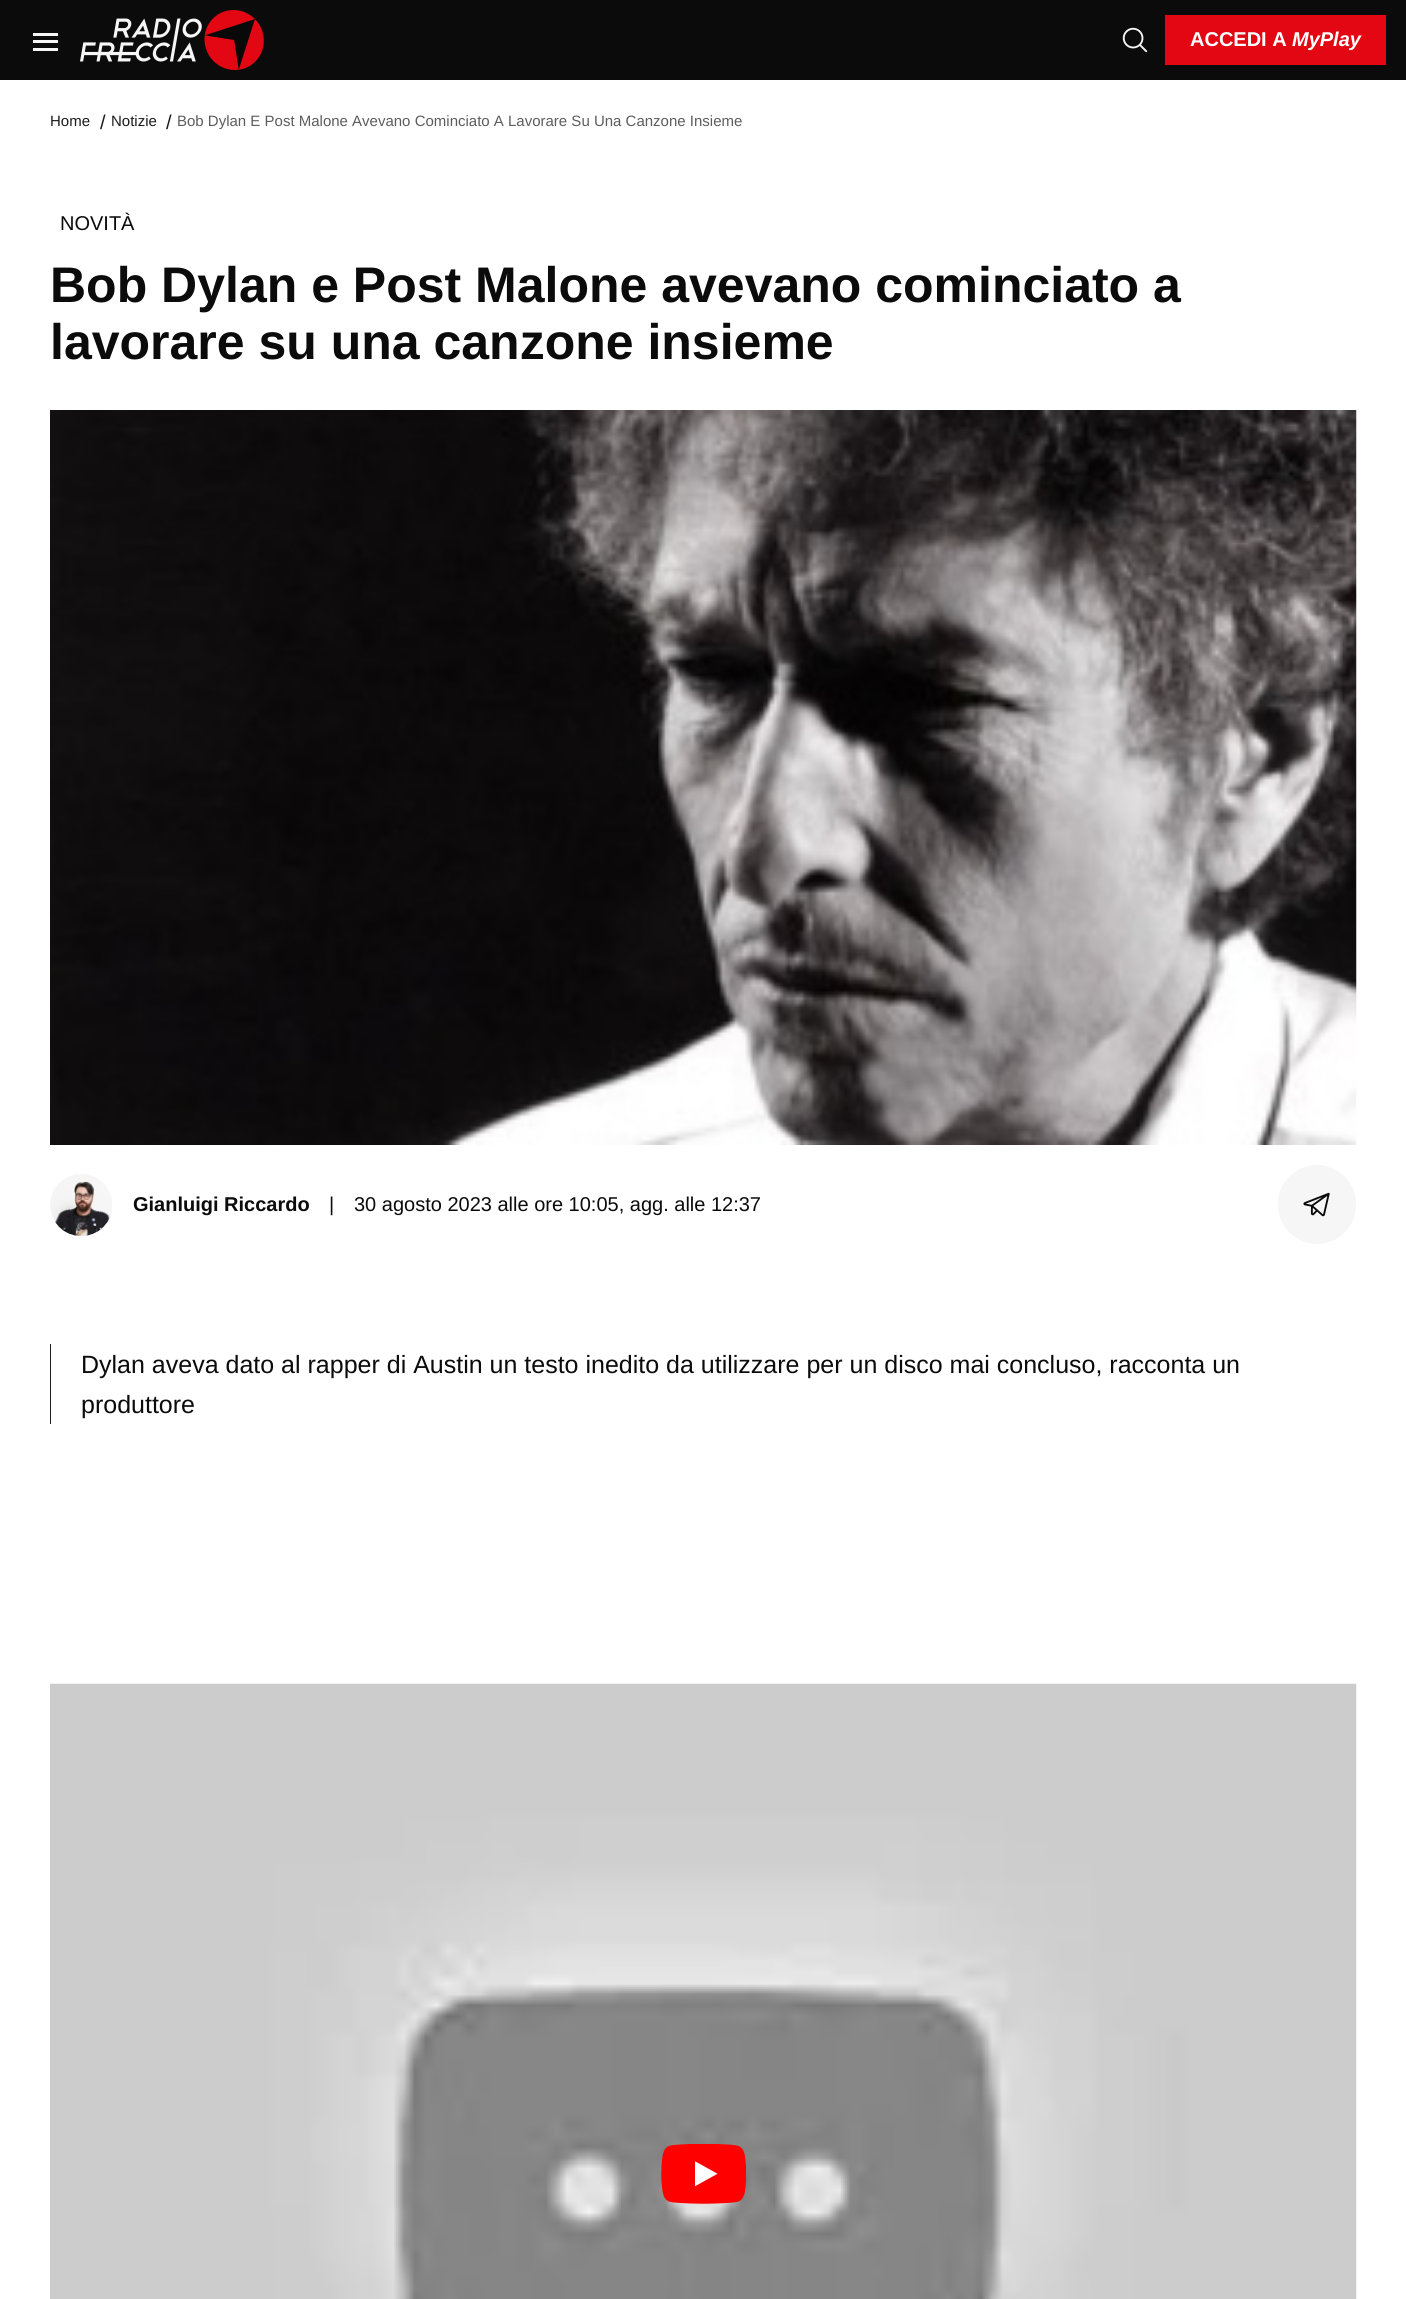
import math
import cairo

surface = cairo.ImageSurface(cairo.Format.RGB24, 1406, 2299)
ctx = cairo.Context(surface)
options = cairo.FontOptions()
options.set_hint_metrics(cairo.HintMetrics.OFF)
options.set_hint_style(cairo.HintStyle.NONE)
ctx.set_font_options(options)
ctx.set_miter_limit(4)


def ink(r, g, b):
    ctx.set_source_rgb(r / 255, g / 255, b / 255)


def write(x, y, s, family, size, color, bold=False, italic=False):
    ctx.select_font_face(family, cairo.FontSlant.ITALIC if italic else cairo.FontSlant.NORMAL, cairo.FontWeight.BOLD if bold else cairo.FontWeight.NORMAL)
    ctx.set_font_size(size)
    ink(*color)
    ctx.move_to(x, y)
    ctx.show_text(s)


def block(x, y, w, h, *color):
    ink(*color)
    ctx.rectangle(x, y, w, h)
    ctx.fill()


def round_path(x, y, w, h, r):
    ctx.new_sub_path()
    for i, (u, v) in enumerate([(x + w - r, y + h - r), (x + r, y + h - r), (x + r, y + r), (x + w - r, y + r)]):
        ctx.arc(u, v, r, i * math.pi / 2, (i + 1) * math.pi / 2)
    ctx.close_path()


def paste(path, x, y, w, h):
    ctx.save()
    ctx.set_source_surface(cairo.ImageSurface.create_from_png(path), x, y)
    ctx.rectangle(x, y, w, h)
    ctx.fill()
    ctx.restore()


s1 = dict(family="Liberation Sans", size=20, color=(255, 255, 255), bold=True)
s2 = dict(family="Liberation Sans", size=20, color=(255, 255, 255), bold=True, italic=True)
s3 = dict(family="Liberation Sans", size=15, color=(28, 28, 28))
s4 = dict(family="Liberation Sans", size=20, color=(28, 28, 28))
s5 = dict(family="Liberation Sans", size=15, color=(93, 93, 93))
s6 = dict(family="Liberation Sans", size=20, color=(11, 11, 11))
s7 = dict(family="Liberation Sans", size=50, color=(11, 11, 11), bold=True)
s8 = dict(family="Liberation Sans", size=20, color=(11, 11, 11), bold=True)
s9 = dict(family="Liberation Sans", size=25, color=(11, 11, 11))

ink(255, 255, 255)
ctx.paint()
block(0, 0, 1406, 80, 11, 11, 11)
block(33, 33, 25, 3, 246, 246, 246)
block(33, 40, 25, 3, 246, 246, 246)
block(33, 48, 25, 3, 246, 246, 246)
paste("pic1.png", 80, 10, 184, 60)
paste("pic2.png", 1122, 27, 26, 26)
block(1165, 15, 221, 50, 227, 6, 19)
write(1190, 46, "ACCEDI A", **s1)
write(1292, 46, "MyPlay", **s2)
write(50, 126, "Home", **s3)
write(100, 129, "/", **s4)
write(111, 126, "Notizie", **s3)
write(166, 129, "/", **s4)
write(177, 126, "Bob Dylan E Post Malone Avevano Cominciato A Lavorare Su Una Canzone Insieme", **s5)
write(60, 230, "NOVITÀ", **s6)
write(50, 302, "Bob Dylan e Post Malone avevano cominciato a", **s7)
write(50, 359, "lavorare su una canzone insieme", **s7)
paste("pic3.png", 50, 410, 1307, 735)
paste("pic4.png", 50, 1174, 62, 62)
write(133, 1211, "Gianluigi Riccardo", **s8)
write(329, 1211, "|", **s6)
write(354, 1211, "30 agosto 2023 alle ore 10:05, agg. alle 12:37", **s6)
ink(246, 246, 246)
round_path(1278, 1165, 78, 79, 39)
ctx.fill()
paste("pic5.png", 1303, 1192, 27, 25)
block(50, 1344, 1, 80, 28, 28, 28)
write(81, 1373, "Dylan aveva dato al rapper di Austin un testo inedito da utilizzare per un disco mai concluso, racconta un", **s9)
write(81, 1413, "produttore", **s9)
paste("pic6.png", 50, 1683, 1307, 616)
paste("pic7.png", 661, 2144, 85, 60)
surface.write_to_png("screenshot.png")
